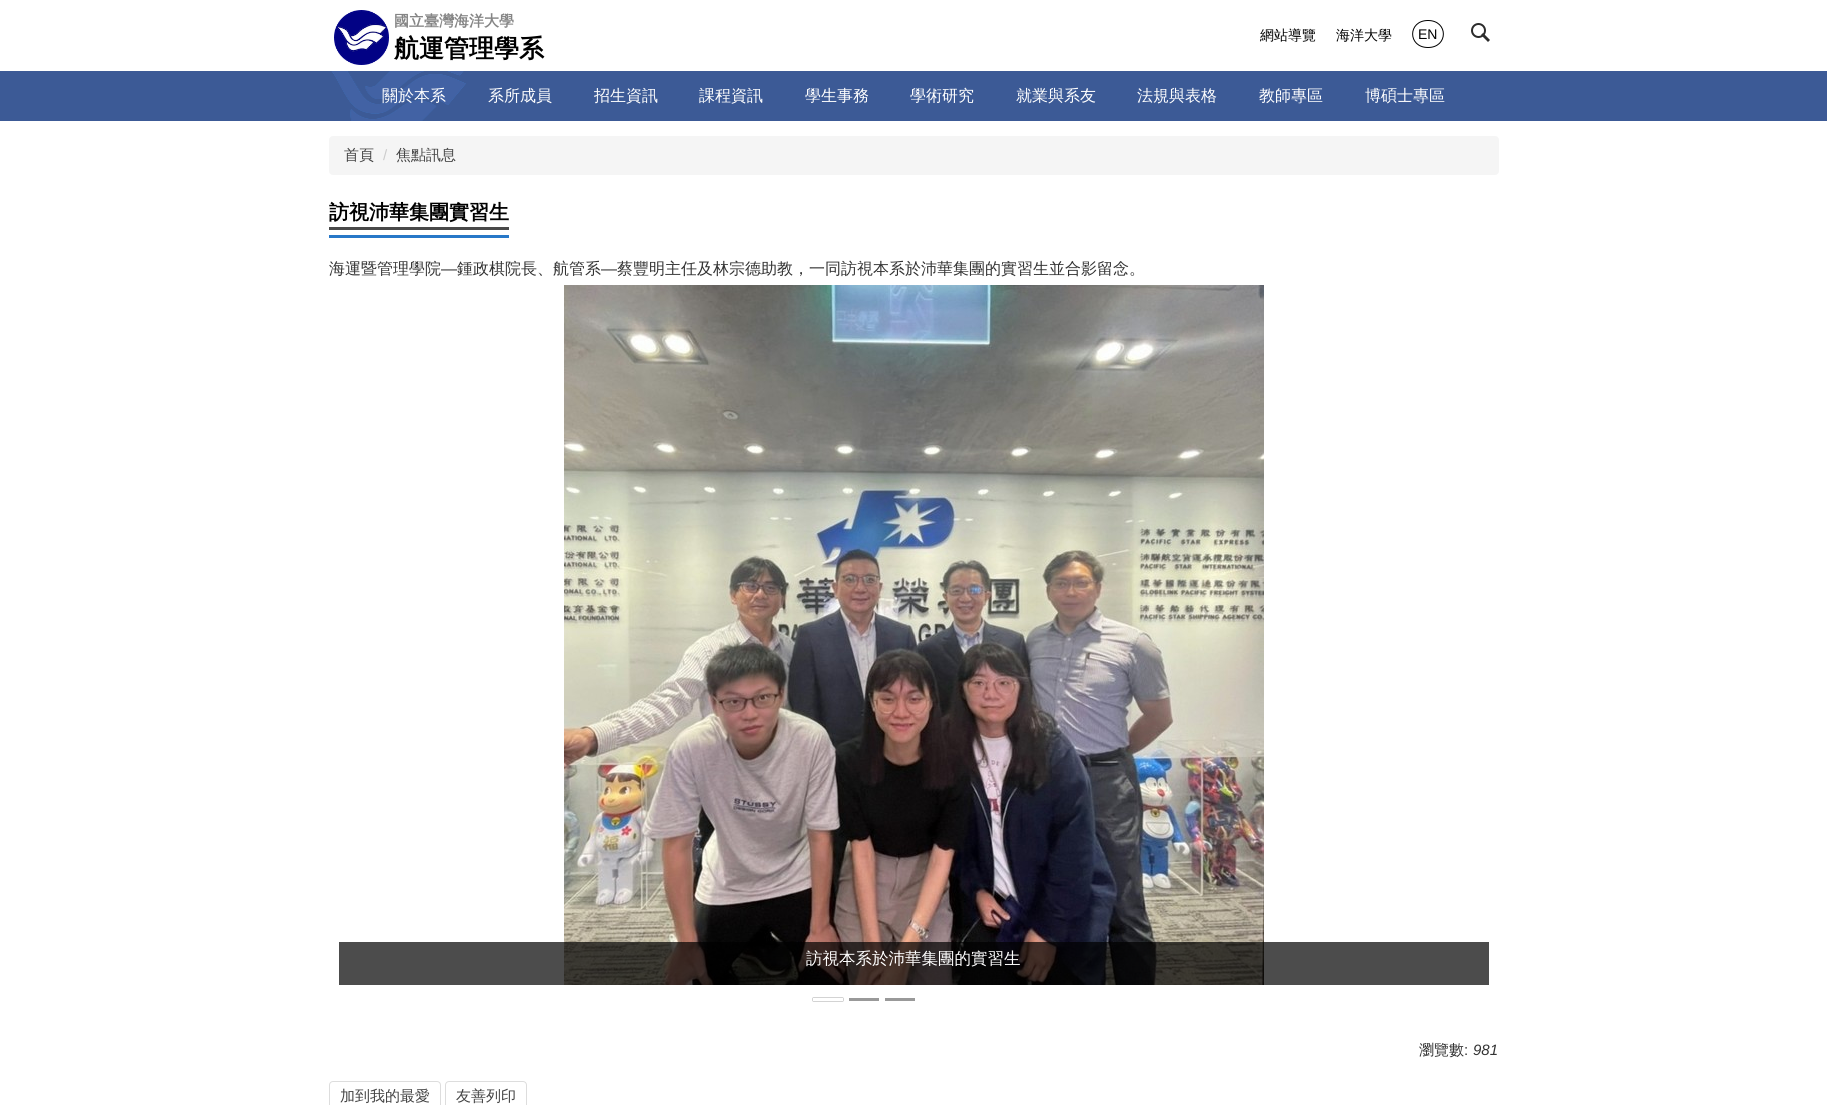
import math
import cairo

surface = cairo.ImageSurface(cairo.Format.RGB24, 1827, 1105)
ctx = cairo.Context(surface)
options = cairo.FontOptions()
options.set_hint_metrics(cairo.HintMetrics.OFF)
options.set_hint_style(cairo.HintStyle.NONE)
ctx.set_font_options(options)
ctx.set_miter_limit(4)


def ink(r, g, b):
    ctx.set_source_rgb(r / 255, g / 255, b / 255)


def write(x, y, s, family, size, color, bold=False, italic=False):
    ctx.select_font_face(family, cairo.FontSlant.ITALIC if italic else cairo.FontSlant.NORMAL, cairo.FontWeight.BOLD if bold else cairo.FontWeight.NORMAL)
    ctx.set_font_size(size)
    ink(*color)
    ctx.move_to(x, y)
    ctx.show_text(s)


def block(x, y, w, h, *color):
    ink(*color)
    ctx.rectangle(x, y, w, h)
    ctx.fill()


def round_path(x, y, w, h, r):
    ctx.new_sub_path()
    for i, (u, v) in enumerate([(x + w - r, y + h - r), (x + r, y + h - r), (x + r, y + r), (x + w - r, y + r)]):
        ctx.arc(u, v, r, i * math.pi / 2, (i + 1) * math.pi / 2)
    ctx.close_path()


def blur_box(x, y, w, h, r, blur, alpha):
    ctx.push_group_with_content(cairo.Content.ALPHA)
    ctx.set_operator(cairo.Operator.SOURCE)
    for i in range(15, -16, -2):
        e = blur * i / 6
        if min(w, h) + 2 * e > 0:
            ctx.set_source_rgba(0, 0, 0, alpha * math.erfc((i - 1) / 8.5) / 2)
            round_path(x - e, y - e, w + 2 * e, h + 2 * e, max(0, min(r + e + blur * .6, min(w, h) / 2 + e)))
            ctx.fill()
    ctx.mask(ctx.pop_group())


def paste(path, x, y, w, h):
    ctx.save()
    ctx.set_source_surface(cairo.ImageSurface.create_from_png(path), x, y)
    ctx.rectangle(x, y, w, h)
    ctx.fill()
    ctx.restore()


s1 = dict(family="WenQuanYi Zen Hei", size=15, color=(133, 133, 133), bold=True)
s2 = dict(family="WenQuanYi Zen Hei", size=25, color=(0, 0, 0), bold=True)
s3 = dict(family="WenQuanYi Zen Hei Medium", size=14, color=(0, 0, 0))
s4 = dict(family="Liberation Sans", size=14, color=(0, 0, 0))
s5 = dict(family="WenQuanYi Zen Hei Medium", size=16, color=(255, 255, 255))
s6 = dict(family="WenQuanYi Zen Hei Medium", size=15, color=(67, 67, 67))
s7 = dict(family="Liberation Sans", size=15, color=(204, 204, 204))
s8 = dict(family="WenQuanYi Zen Hei", size=20, color=(0, 0, 0), bold=True)
s9 = dict(family="WenQuanYi Zen Hei Medium", size=16, color=(51, 51, 51))
s10 = dict(family="Liberation Sans", size=16, color=(51, 51, 51))
s11 = dict(family="WenQuanYi Zen Hei Medium", size=16.5, color=(255, 255, 255))
s12 = dict(family="WenQuanYi Zen Hei Medium", size=15, color=(51, 51, 51))
s13 = dict(family="Liberation Sans", size=15, color=(51, 51, 51))
s14 = dict(family="Liberation Sans", size=15, color=(51, 51, 51), italic=True)

ink(255, 255, 255)
ctx.paint()
paste("pic1.png", 334, 10, 55, 55)
write(394, 26, "國立臺灣海洋大學", **s1)
write(394, 57, "航運管理學系", **s2)
ctx.new_path()
ctx.arc(1478.5, 30.5, 6.5, 0, 2 * math.pi)
ink(44, 44, 44)
ctx.stroke()
ctx.new_path()
ctx.move_to(1483, 33)
ctx.line_to(1490, 40)
ctx.line_to(1488, 42)
ctx.line_to(1481, 35)
ctx.close_path()
ctx.fill()
write(1260, 40, "網站導覽", **s3)
write(1336, 40, "海洋大學", **s3)
ctx.new_path()
ctx.move_to(1428, 20.5)
ctx.curve_to(1448.5, 20.5, 1448.5, 47.5, 1428, 47.5)
ctx.curve_to(1407.5, 47.5, 1407.5, 20.5, 1428, 20.5)
ctx.close_path()
ctx.set_line_width(1)
ctx.stroke()
write(1418, 39, "EN", **s4)
block(0, 71, 1827, 50, 60, 90, 150)
paste("pic2.png", 331, 71, 135, 50)
write(382, 101, "關於本系", **s5)
write(488, 101, "系所成員", **s5)
write(594, 101, "招生資訊", **s5)
write(699, 101, "課程資訊", **s5)
write(805, 101, "學生事務", **s5)
write(910, 101, "學術研究", **s5)
write(1016, 101, "就業與系友", **s5)
write(1137, 101, "法規與表格", **s5)
write(1259, 101, "教師專區", **s5)
write(1365, 101, "博碩士專區", **s5)
ink(245, 245, 245)
round_path(329, 136, 1170, 39, 4)
ctx.fill()
write(344, 160, "首頁", **s6)
write(383, 160, "/", **s7)
write(396, 160, "焦點訊息", **s6)
block(329, 235, 180, 3, 40, 120, 200)
write(329, 219, "訪視沛華集團實習生", **s8)
block(329, 227, 180, 3, 73, 73, 73)
write(329, 274, "海運暨管理學院", **s9)
write(441, 274, "—", **s10)
write(457, 274, "鍾政棋院長、航管系", **s9)
write(601, 274, "—", **s10)
write(617, 274, "蔡豐明主任及林宗德助教，一同訪視本系於沛華集團的實習生並合影留念。", **s9)
paste("pic3.png", 564, 285, 700, 700)
ctx.set_source_rgba(0, 0, 0, 0.7)
ctx.rectangle(339, 942, 1150, 43)
ctx.fill()
write(806, 964, "訪視本系於沛華集團的實習生", **s11)
ctx.save()
ctx.set_fill_rule(cairo.FillRule.EVEN_ODD)
ctx.new_path()
ctx.move_to(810, 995)
ctx.line_to(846, 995)
ctx.line_to(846, 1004)
ctx.line_to(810, 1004)
ctx.close_path()
ctx.move_to(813, 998)
ctx.line_to(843, 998)
ctx.line_to(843, 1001)
ctx.line_to(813, 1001)
ctx.close_path()
ctx.clip()
ink(0, 0, 0)
blur_box(813, 998, 30, 3, 0, 0.5, 0.7)
ctx.restore()
block(849, 998, 30, 3, 153, 153, 153)
block(885, 998, 30, 3, 153, 153, 153)
write(1419, 1055, "瀏覽數", **s12)
write(1464, 1055, ":", **s13)
write(1473, 1055, "981", **s14)
round_path(329.5, 1081.5, 111, 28, 3.5)
ink(221, 221, 221)
ctx.stroke()
write(340, 1101, "加到我的最愛", **s6)
round_path(445.5, 1081.5, 81, 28, 3.5)
ink(221, 221, 221)
ctx.stroke()
write(456, 1101, "友善列印", **s6)
surface.write_to_png("screenshot.png")
